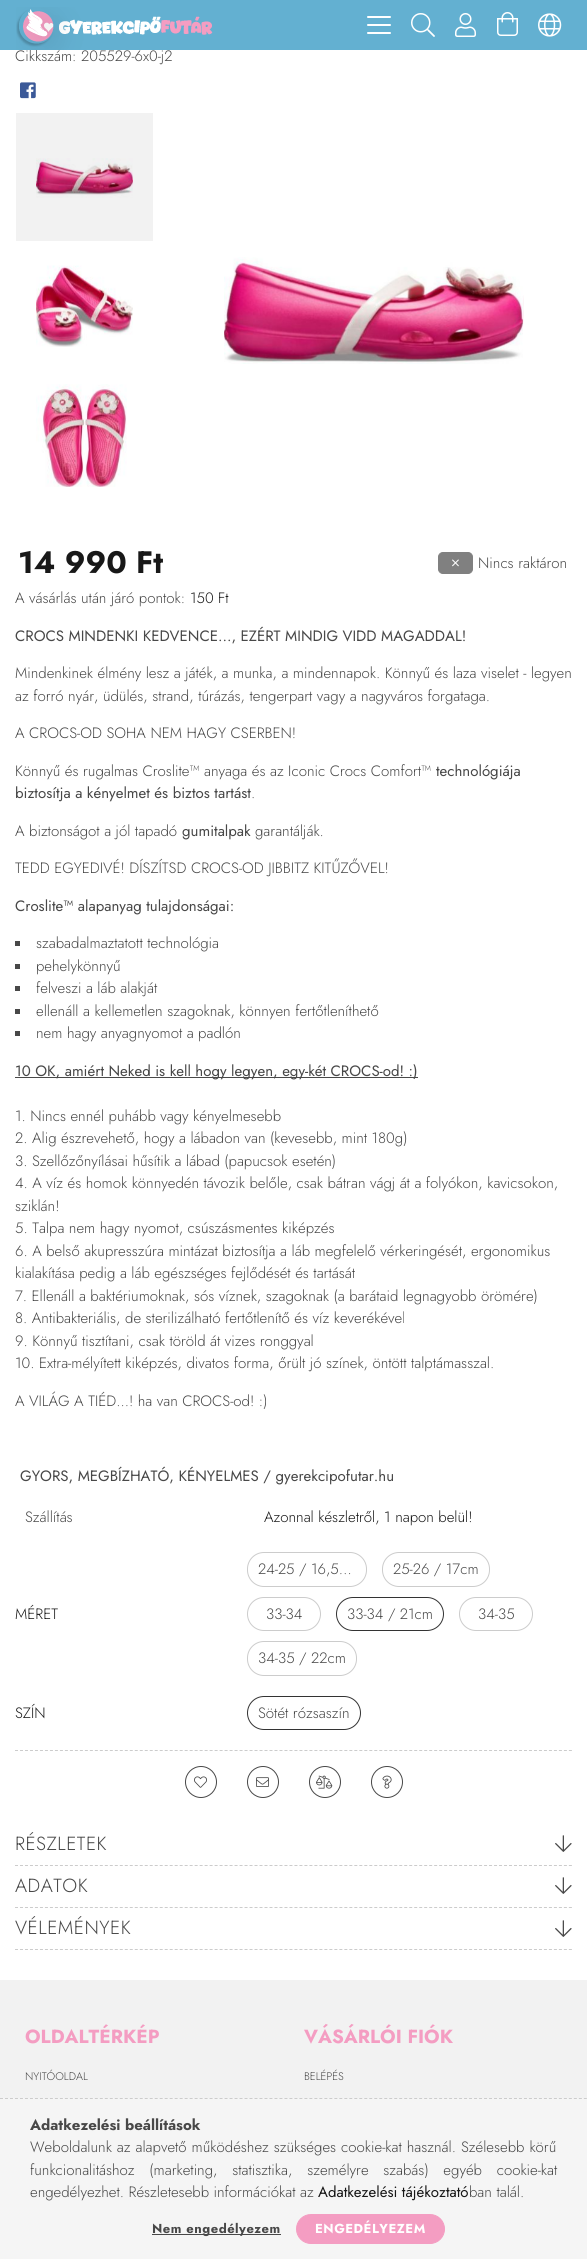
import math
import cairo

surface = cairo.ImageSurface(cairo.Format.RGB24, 587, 2259)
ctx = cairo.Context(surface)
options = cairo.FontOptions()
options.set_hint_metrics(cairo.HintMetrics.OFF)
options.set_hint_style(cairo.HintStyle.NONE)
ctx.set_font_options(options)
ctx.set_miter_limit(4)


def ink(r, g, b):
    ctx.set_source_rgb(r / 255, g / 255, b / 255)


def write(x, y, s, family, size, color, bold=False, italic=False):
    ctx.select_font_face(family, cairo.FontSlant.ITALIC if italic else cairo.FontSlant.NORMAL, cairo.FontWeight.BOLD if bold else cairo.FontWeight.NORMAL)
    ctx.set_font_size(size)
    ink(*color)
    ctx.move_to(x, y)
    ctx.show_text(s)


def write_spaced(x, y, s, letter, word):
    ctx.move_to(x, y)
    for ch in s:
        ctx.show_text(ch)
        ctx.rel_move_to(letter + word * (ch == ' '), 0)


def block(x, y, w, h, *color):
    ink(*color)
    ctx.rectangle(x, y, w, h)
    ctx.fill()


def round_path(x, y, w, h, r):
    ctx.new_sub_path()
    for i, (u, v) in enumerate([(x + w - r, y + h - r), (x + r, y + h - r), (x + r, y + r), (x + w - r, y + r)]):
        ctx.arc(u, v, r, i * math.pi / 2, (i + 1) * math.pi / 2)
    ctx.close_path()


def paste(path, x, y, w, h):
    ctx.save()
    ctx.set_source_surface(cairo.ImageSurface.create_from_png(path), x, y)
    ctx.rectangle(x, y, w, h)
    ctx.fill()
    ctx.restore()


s1 = dict(family="Jost Light", size=15, color=(72, 72, 72))
s2 = dict(family="Jost", size=31, color=(24, 24, 24), bold=True)
s3 = dict(family="Jost Light", size=15, color=(24, 24, 24))
s4 = dict(family="Jost", size=15, color=(72, 72, 72))
s5 = dict(family="Jost", size=19, color=(244, 157, 194), bold=True)
s6 = dict(family="Jost Light", size=11, color=(72, 72, 72))
s7 = dict(family="Jost", size=15, color=(72, 72, 72), bold=True)
s8 = dict(family="Jost", size=15, color=(24, 24, 24))

ink(255, 255, 255)
ctx.paint()
block(16, 113, 137, 128, 242, 242, 242)
write(15, 61, "Cikkszám: 205529-6x0-j2", **s1)
block(0, 0, 587, 50, 99, 176, 209)
paste("pic1.png", 16, 7, 197, 43)
ink(255, 255, 255)
round_path(367, 16, 24, 2, 1)
ctx.fill()
round_path(367, 24, 24, 2, 1)
ctx.fill()
round_path(367, 32, 24, 2, 1)
ctx.fill()
paste("pic2.png", 411, 13, 24, 24)
paste("pic3.png", 455, 13, 21, 24)
paste("pic4.png", 497, 12, 21, 24)
paste("pic5.png", 538, 13, 24, 24)
paste("pic6.png", 20, 82, 16, 17)
paste("pic7.png", 36, 158, 97, 40)
paste("pic8.png", 36, 265, 97, 82)
paste("pic9.png", 36, 384, 91, 103)
paste("pic11.png", 523, 295, 1, 27)
paste("pic10.png", 224, 257, 300, 107)
write(18, 573, "14 990 Ft", **s2)
ink(128, 128, 128)
round_path(438.5, 552.5, 34, 21, 4.5)
ctx.fill_preserve()
ctx.set_line_width(1)
ctx.stroke()
paste("pic12.png", 452, 559, 7, 8)
write(478, 568, "Nincs raktáron", **s1)
write(15, 603, "A vásárlás után járó pontok:", **s1)
write(190, 603, "150 Ft", **s3)
write(15, 641, "CROCS MINDENKI KEDVENCE..., EZÉRT MINDIG VIDD MAGADDAL!", **s4)
write(15, 678, "Mindenkinek élmény lesz a játék, a munka, a mindennapok. Könnyű és laza viselet - legyen", **s1)
write(15, 701, "az forró nyár, üdülés, strand, túrázás, tengerpart vagy a nagyváros forgataga.", **s1)
write(15, 738, "A CROCS-OD SOHA NEM HAGY CSERBEN!", **s1)
write(15, 776, "Könnyű és rugalmas Croslite™ anyaga és az Iconic Crocs Comfort™", **s1)
write(436, 776, "technológiája", **s4)
write(15, 798, "biztosítja a kényelmet és biztos tartást", **s4)
write(251, 798, ".", **s1)
write(15, 836, "A biztonságot a jól tapadó", **s1)
write(182, 836, "gumitalpak", **s4)
write(255, 836, "garantálják.", **s1)
write(15, 873, "TEDD EGYEDIVÉ! DÍSZÍTSD CROCS-OD JIBBITZ KITŰZŐVEL!", **s1)
write(15, 911, "Croslite™ alapanyag tulajdonságai:", **s4)
block(15, 941, 5, 5, 72, 72, 72)
write(36, 948, "szabadalmaztatott technológia", **s1)
block(15, 964, 5, 5, 72, 72, 72)
write(36, 971, "pehelykönnyű", **s1)
block(15, 986, 5, 5, 72, 72, 72)
write(36, 993, "felveszi a láb alakját", **s1)
block(15, 1009, 5, 5, 72, 72, 72)
write(36, 1016, "ellenáll a kellemetlen szagoknak, könnyen fertőtleníthető", **s1)
block(15, 1031, 5, 5, 72, 72, 72)
write(36, 1038, "nem hagy anyagnyomot a padlón", **s1)
block(15, 1077, 403, 1, 72, 72, 72)
write(15, 1076, "10 OK, amiért Neked is kell hogy legyen, egy-két CROCS-od! :)", **s4)
write(15, 1121, "1. Nincs ennél puhább vagy kényelmesebb", **s1)
write(15, 1143, "2. Alig észrevehető, hogy a lábadon van (kevesebb, mint 180g)", **s1)
write(15, 1166, "3. Szellőzőnyílásai hűsítik a lábad (papucsok esetén)", **s1)
write(15, 1188, "4. A víz és homok könnyedén távozik belőle, csak bátran vágj át a folyókon, kavicsokon,", **s1)
write(15, 1211, "sziklán!", **s1)
write(15, 1233, "5. Talpa nem hagy nyomot, csúszásmentes kiképzés", **s1)
write(15, 1256, "6. A belső akupresszúra mintázat biztosítja a láb megfelelő vérkeringését, ergonomikus", **s1)
write(15, 1278, "kialakítása pedig a láb egészséges fejlődését és tartását", **s1)
write(15, 1301, "7. Ellenáll a baktériumoknak, sós víznek, szagoknak (a barátaid legnagyobb örömére)", **s1)
write(15, 1323, "8. Antibakteriális, de sterilizálható fertőtlenítő és víz keverékével", **s1)
write(15, 1346, "9. Könnyű tisztítani, csak töröld át vizes ronggyal", **s1)
write(15, 1368, "10. Extra-mélyített kiképzés, divatos forma, őrült jó színek, öntött talptámasszal.", **s1)
write(15, 1406, "A VILÁG A TIÉD...! ha van CROCS-od! :)", **s1)
write(20, 1481, "GYORS, MEGBÍZHATÓ, KÉNYELMES / gyerekcipofutar.hu", **s4)
write(25, 1522, "Szállítás", **s1)
write(264, 1522, "Azonnal készletről, 1 napon belül!", **s3)
write(15, 1619, "MÉRET", **s3)
round_path(247.5, 1552.5, 119, 34, 16.5)
ink(204, 204, 204)
ctx.stroke()
write(258, 1574, "24-25 / 16,5…", **s1)
round_path(382.5, 1552.5, 107, 34, 16.5)
ink(204, 204, 204)
ctx.stroke()
write(393, 1574, "25-26 / 17cm", **s1)
round_path(247.5, 1597.5, 73, 33, 16.5)
ink(204, 204, 204)
ctx.stroke()
write(266, 1619, "33-34", **s1)
round_path(336.5, 1597.5, 107, 33, 16.5)
ink(51, 51, 51)
ctx.stroke()
write(347, 1619, "33-34 / 21cm", **s1)
round_path(459.5, 1597.5, 73, 33, 16.5)
ink(204, 204, 204)
ctx.stroke()
write(478, 1619, "34-35", **s1)
round_path(247.5, 1641.5, 109, 34, 16.5)
ink(204, 204, 204)
ctx.stroke()
write(258, 1663, "34-35 / 22cm", **s1)
write(15, 1718, "SZÍN", **s3)
round_path(247.5, 1696.5, 113, 33, 16.5)
ink(51, 51, 51)
ctx.stroke()
write(258, 1718, "Sötét rózsaszín", **s1)
ctx.new_path()
ctx.move_to(15, 1750.5)
ctx.line_to(572, 1750.5)
ink(204, 204, 204)
ctx.set_dash([3, 1.99])
ctx.stroke()
ctx.arc(201, 1782, 15.5, 0, 2 * math.pi)
ink(72, 72, 72)
ctx.set_dash([])
ctx.stroke()
paste("pic13.png", 194, 1776, 13, 12)
ctx.arc(263, 1782, 15.5, 0, 2 * math.pi)
ctx.stroke()
paste("pic14.png", 256, 1777, 13, 10)
ctx.arc(325, 1782, 15.5, 0, 2 * math.pi)
ctx.stroke()
paste("pic15.png", 316, 1775, 17, 14)
ctx.arc(387, 1782, 15.5, 0, 2 * math.pi)
ctx.stroke()
paste("pic16.png", 382, 1775, 10, 14)
ctx.new_path()
ctx.move_to(15, 1865.5)
ctx.line_to(572, 1865.5)
ink(204, 204, 204)
ctx.set_dash([3, 1.99])
ctx.stroke()
ctx.set_font_size(19)
ink(72, 72, 72)
write_spaced(15, 1850, "RÉSZLETEK", 0.5, 0)
paste("pic17.png", 555, 1835, 17, 17)
ctx.new_path()
ctx.move_to(15, 1907.5)
ctx.line_to(572, 1907.5)
ink(204, 204, 204)
ctx.stroke()
ink(72, 72, 72)
write_spaced(15, 1892, "ADATOK", 0.5, 0)
paste("pic17.png", 555, 1877, 17, 17)
ctx.new_path()
ctx.move_to(15, 1949.5)
ctx.line_to(572, 1949.5)
ink(204, 204, 204)
ctx.stroke()
ink(72, 72, 72)
write_spaced(15, 1934, "VÉLEMÉNYEK", 0.5, 0)
paste("pic17.png", 555, 1920, 17, 17)
block(0, 1980, 587, 118, 242, 242, 242)
write(25, 2043, "OLDALTÉRKÉP", **s5)
write(25, 2080, "NYITÓOLDAL", **s6)
write(304, 2043, "VÁSÁRLÓI FIÓK", **s5)
write(304, 2080, "BELÉPÉS", **s6)
block(0, 2098, 587, 161, 245, 245, 245)
ctx.new_path()
ctx.move_to(0, 2098.5)
ctx.line_to(587, 2098.5)
ink(204, 204, 204)
ctx.stroke()
write(30, 2130, "Adatkezelési beállítások", **s7)
ctx.select_font_face("Jost Light")
write_spaced(30, 2152, "Weboldalunk az alapvető működéshez szükséges cookie-kat használ. Szélesebb körű", 0, 0.5)
write_spaced(30, 2175, "funkcionalitáshoz (marketing, statisztika, személyre szabás) egyéb cookie-kat", 0, 10.25)
write(30, 2197, "engedélyezhet. Részletesebb információkat az", **s1)
write(318, 2197, "Adatkezelési tájékoztató", **s8)
write(469, 2197, "ban talál.", **s1)
block(152, 2234, 129, 1, 72, 72, 72)
ctx.select_font_face("Jost", cairo.FontSlant.NORMAL, cairo.FontWeight.BOLD)
ctx.set_font_size(13)
write_spaced(152, 2233, "Nem engedélyezem", 0.5, 0)
ink(244, 157, 194)
round_path(296.5, 2214.5, 148, 29, 14.5)
ctx.fill_preserve()
ctx.set_dash([])
ctx.stroke()
ink(255, 255, 255)
write_spaced(315, 2233, "ENGEDÉLYEZEM", 0.5, 0)
surface.write_to_png("screenshot.png")
